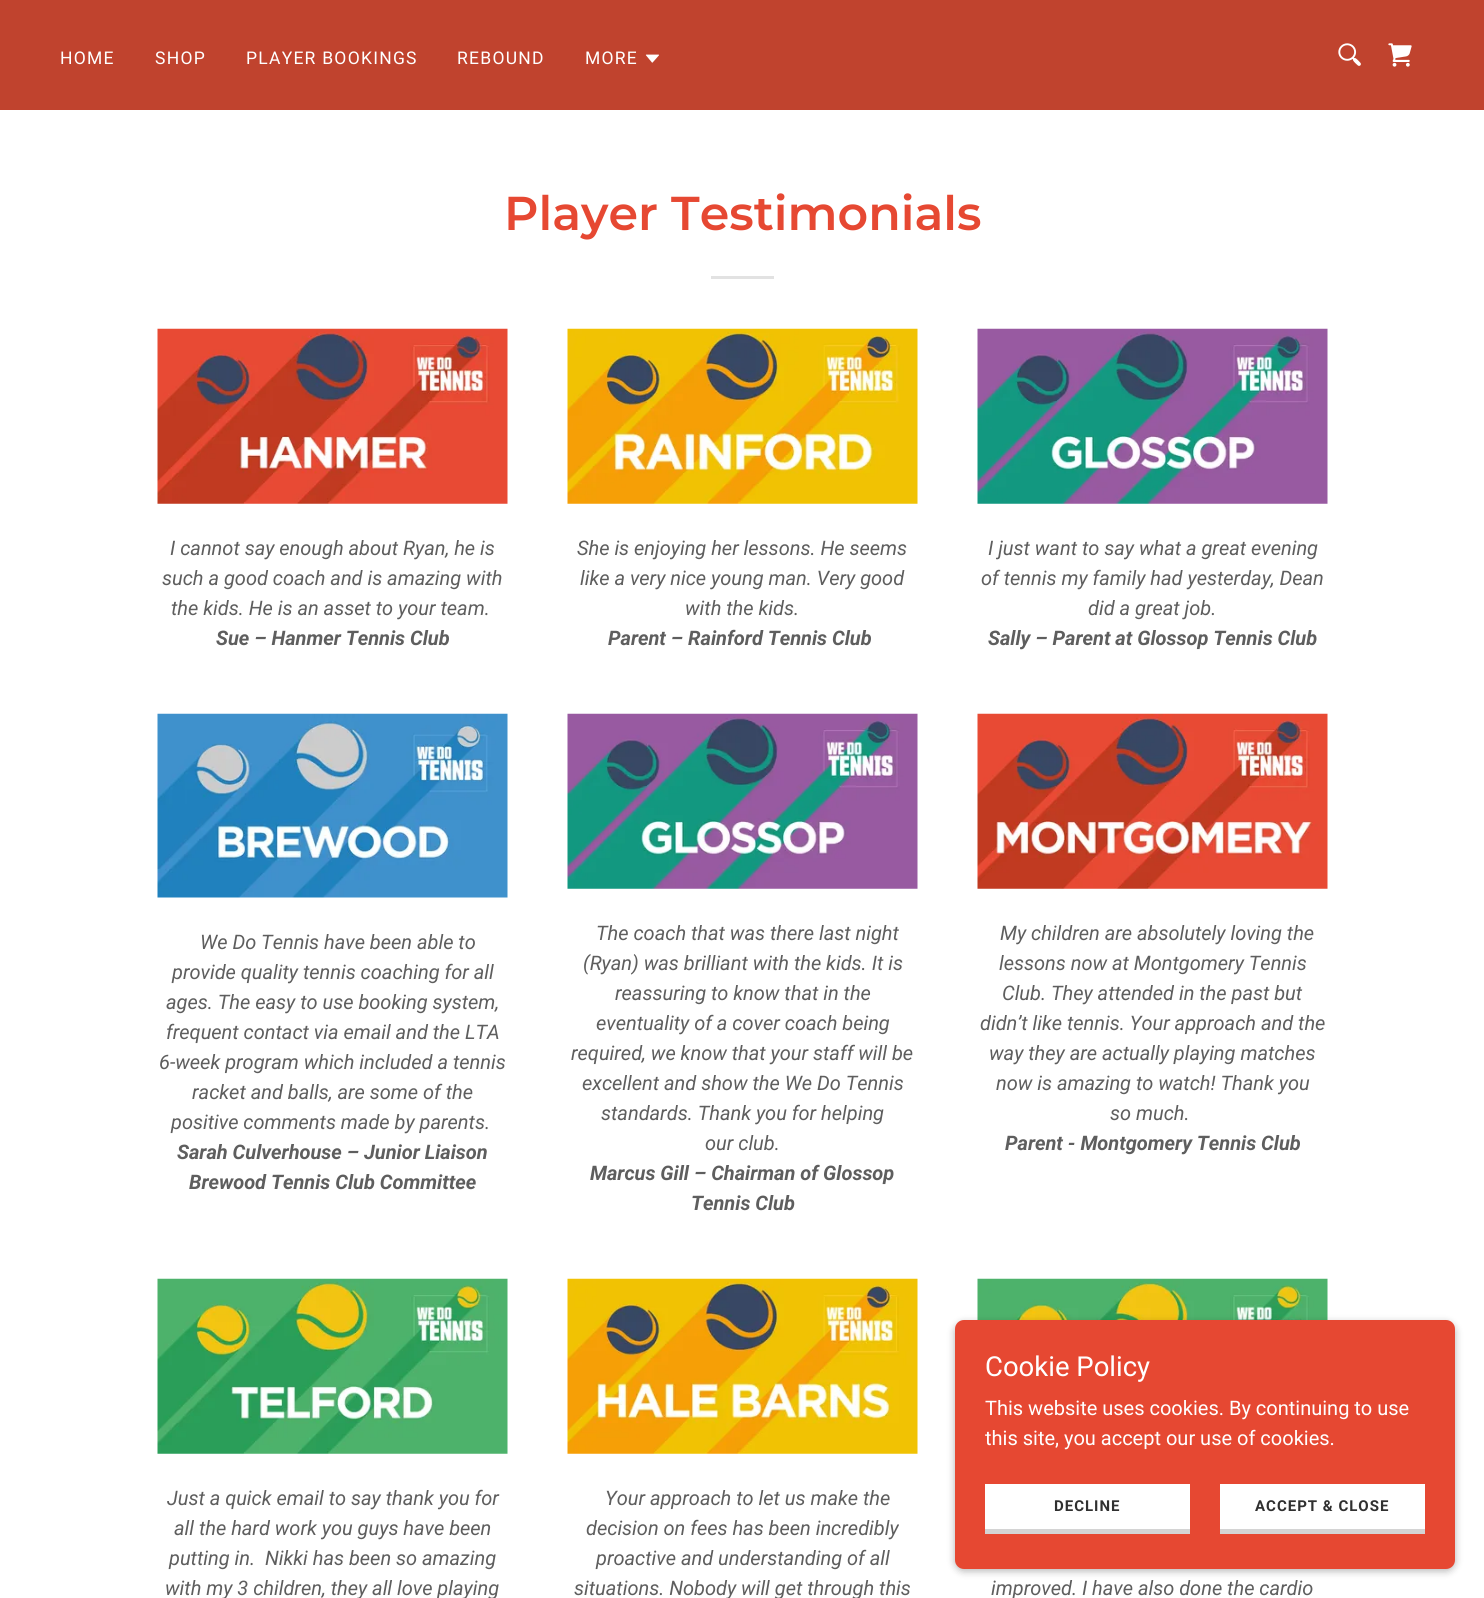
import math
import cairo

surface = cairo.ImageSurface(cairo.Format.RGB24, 1484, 1598)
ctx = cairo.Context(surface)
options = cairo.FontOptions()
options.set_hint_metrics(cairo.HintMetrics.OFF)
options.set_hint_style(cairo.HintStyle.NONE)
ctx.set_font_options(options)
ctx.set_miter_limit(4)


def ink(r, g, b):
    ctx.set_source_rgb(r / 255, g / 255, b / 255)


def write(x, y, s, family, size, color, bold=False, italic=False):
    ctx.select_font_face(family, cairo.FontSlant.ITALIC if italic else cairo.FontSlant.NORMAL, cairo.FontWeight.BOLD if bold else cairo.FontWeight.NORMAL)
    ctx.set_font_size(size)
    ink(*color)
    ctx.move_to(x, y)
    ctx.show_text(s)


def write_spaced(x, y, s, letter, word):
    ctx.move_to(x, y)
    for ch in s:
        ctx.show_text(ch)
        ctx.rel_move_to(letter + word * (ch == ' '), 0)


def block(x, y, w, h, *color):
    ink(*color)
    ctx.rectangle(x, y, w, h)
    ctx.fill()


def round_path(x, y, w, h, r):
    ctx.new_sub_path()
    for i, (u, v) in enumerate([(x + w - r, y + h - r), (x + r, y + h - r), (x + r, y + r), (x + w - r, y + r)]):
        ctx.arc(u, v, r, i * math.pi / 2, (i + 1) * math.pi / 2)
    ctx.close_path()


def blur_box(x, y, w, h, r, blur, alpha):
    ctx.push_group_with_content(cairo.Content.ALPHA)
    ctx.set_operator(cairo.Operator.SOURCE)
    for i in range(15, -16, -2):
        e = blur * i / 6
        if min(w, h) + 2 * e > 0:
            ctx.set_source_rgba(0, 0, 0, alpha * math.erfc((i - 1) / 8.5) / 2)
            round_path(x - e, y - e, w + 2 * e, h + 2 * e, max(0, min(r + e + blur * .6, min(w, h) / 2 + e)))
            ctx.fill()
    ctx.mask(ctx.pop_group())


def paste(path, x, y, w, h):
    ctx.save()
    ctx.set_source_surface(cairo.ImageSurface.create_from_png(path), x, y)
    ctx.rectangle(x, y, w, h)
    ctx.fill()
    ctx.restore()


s1 = dict(family="Montserrat SemiBold", size=47.5, color=(230, 72, 50))
s2 = dict(family="Roboto", size=20, color=(94, 94, 94), italic=True)
s3 = dict(family="Roboto", size=20, color=(94, 94, 94), bold=True, italic=True)
s4 = dict(family="Roboto", size=27.5, color=(255, 255, 255))
s5 = dict(family="Roboto", size=20, color=(255, 255, 255))

ink(192, 67, 46)
ctx.paint()
ctx.select_font_face("Roboto")
ctx.set_font_size(17.5)
ink(255, 255, 255)
write_spaced(60, 64, "HOME", 1.25, 0)
write_spaced(155, 64, "SHOP", 1.25, 0)
write_spaced(246, 64, "PLAYER BOOKINGS", 1.25, 0)
write_spaced(457, 64, "REBOUND", 1.25, 0)
write_spaced(585, 64, "MORE", 1.25, 0)
paste("pic1.png", 645, 54, 14, 9)
paste("pic2.png", 1338, 43, 23, 23)
paste("pic3.png", 1388, 43, 24, 24)
block(0, 110, 1484, 1488, 255, 255, 255)
write(504, 230, "Player Testimonials", **s1)
block(711, 276, 63, 3, 226, 226, 226)
paste("pic4.png", 157, 328, 351, 176)
write(170, 555, "I cannot say enough about Ryan, he is", **s2)
write(162, 585, "such a good coach and is amazing with", **s2)
write(171, 615, "the kids. He is an asset to your team.", **s2)
write(216, 645, "Sue – Hanmer Tennis Club", **s3)
paste("pic5.png", 567, 328, 351, 176)
write(577, 555, "She is enjoying her lessons. He seems", **s2)
write(580, 585, "like a very nice young man. Very good", **s2)
write(685, 615, "with the kids.", **s2)
write(608, 645, "Parent – Rainford Tennis Club", **s3)
paste("pic6.png", 977, 328, 351, 176)
write(988, 555, "I just want to say what a great evening", **s2)
write(981, 585, "of tennis my family had yesterday, Dean", **s2)
write(1088, 615, "did a great job.", **s2)
write(988, 645, "Sally – Parent at Glossop Tennis Club", **s3)
paste("pic7.png", 157, 713, 351, 185)
write(200, 949, "We Do Tennis have been able to", **s2)
write(172, 979, "provide quality tennis coaching for all", **s2)
write(166, 1009, "ages. The easy to use booking system,", **s2)
write(166, 1039, "frequent contact via email and the LTA", **s2)
write(159, 1069, "6-week program which included a tennis", **s2)
write(192, 1099, "racket and balls, are some of the", **s2)
write(171, 1129, "positive comments made by parents.", **s2)
write(177, 1159, "Sarah Culverhouse – Junior Liaison", **s3)
write(189, 1189, "Brewood Tennis Club Committee", **s3)
paste("pic6.png", 567, 713, 351, 176)
write(596, 940, "The coach that was there last night", **s2)
write(583, 970, "(Ryan) was brilliant with the kids. It is", **s2)
write(615, 1000, "reassuring to know that in the", **s2)
write(596, 1030, "eventuality of a cover coach being", **s2)
write(571, 1060, "required, we know that your staff will be", **s2)
write(582, 1090, "excellent and show the We Do Tennis", **s2)
write(601, 1120, "standards. Thank you for helping", **s2)
write(705, 1150, "our club.", **s2)
write(590, 1180, "Marcus Gill – Chairman of Glossop", **s3)
write(691, 1210, "Tennis Club", **s3)
paste("pic8.png", 977, 713, 351, 176)
write(1000, 940, "My children are absolutely loving the", **s2)
write(999, 970, "lessons now at Montgomery Tennis", **s2)
write(1002, 1000, "Club. They attended in the past but", **s2)
write(980, 1030, "didn’t like tennis. Your approach and the", **s2)
write(989, 1060, "way they are actually playing matches", **s2)
write(996, 1090, "now is amazing to watch! Thank you", **s2)
write(1110, 1120, "so much.", **s2)
write(1005, 1150, "Parent - Montgomery Tennis Club", **s3)
paste("pic9.png", 157, 1278, 351, 176)
write(167, 1505, "Just a quick email to say thank you for", **s2)
write(174, 1535, "all the hard work you guys have been", **s2)
write(169, 1565, "putting in.  Nikki has been so amazing", **s2)
write(165, 1595, "with my 3 children, they all love playing", **s2)
paste("pic10.png", 567, 1278, 351, 176)
write(605, 1505, "Your approach to let us make the", **s2)
write(586, 1535, "decision on fees has been incredibly", **s2)
write(596, 1565, "proactive and understanding of all", **s2)
write(574, 1595, "situations. Nobody will get through this", **s2)
paste("pic11.png", 977, 1278, 351, 42)
write(991, 1595, "improved. I have also done the cardio", **s2)
ink(0, 0, 0)
blur_box(955, 1323, 500, 248, 9, 4, 0.3)
ink(230, 72, 50)
round_path(955, 1320, 500, 249, 9)
ctx.fill()
write(985, 1376, "Cookie Policy", **s4)
write(985, 1415, "This website uses cookies. By continuing to use", **s5)
write(985, 1445, "this site, you accept our use of cookies.", **s5)
block(985, 1484, 205, 45, 255, 255, 255)
block(985, 1529, 205, 5, 212, 212, 212)
ctx.select_font_face("Roboto", cairo.FontSlant.NORMAL, cairo.FontWeight.BOLD)
ctx.set_font_size(15)
ink(48, 48, 48)
write_spaced(1054, 1511, "DECLINE", 1, 0)
block(1220, 1484, 205, 45, 255, 255, 255)
block(1220, 1529, 205, 5, 212, 212, 212)
ink(48, 48, 48)
write_spaced(1255, 1511, "ACCEPT & CLOSE", 1, 0)
surface.write_to_png("screenshot.png")
